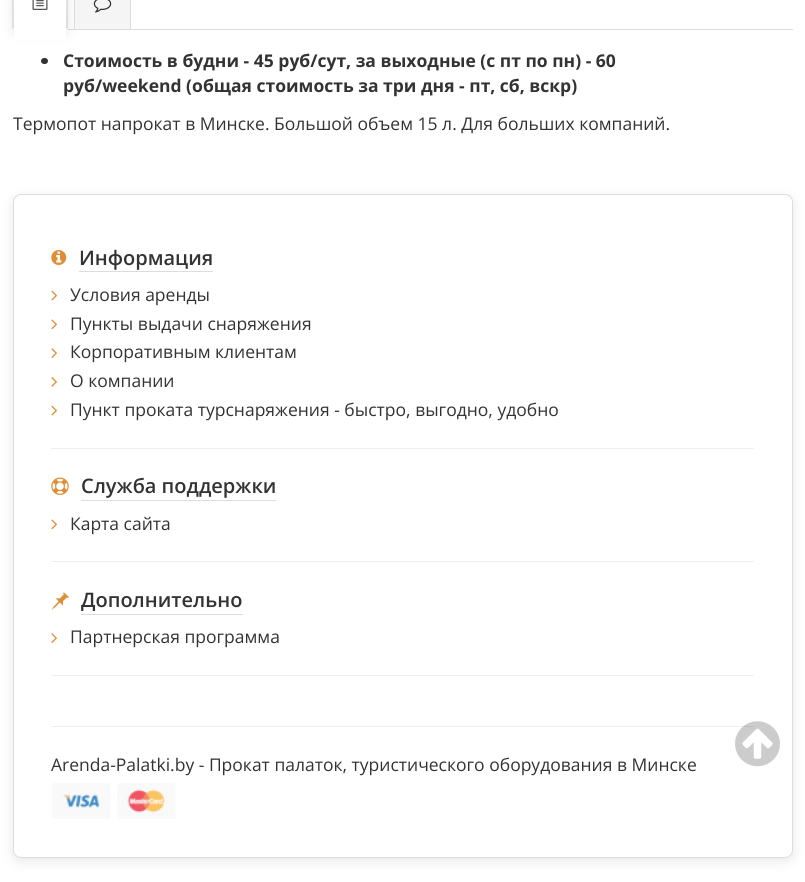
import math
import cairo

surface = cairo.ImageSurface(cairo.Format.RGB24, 805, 882)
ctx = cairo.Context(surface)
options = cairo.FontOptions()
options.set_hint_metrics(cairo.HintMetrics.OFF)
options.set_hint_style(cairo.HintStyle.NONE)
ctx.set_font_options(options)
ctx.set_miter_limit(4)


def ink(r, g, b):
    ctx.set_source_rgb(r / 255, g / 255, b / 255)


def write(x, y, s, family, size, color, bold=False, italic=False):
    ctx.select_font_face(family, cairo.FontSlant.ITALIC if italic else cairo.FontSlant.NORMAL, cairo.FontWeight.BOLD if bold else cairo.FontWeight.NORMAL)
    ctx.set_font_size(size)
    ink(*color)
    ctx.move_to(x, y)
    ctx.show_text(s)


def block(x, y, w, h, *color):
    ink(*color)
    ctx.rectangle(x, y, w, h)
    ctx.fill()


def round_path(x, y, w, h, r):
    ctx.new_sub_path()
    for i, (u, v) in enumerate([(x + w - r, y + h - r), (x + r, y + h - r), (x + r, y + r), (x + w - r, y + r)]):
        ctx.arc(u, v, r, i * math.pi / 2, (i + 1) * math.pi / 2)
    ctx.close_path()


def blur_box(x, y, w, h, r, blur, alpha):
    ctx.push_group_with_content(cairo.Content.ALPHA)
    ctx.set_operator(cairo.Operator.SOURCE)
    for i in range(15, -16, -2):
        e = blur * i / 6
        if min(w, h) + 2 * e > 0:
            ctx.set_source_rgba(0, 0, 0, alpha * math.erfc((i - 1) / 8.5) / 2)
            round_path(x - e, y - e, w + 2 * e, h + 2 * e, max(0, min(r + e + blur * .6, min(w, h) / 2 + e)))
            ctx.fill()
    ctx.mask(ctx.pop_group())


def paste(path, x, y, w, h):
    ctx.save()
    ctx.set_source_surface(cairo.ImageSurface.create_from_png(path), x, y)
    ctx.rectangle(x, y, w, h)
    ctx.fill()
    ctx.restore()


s1 = dict(family="Open Sans", size=17.5, color=(51, 51, 51), bold=True)
s2 = dict(family="Open Sans", size=17.5, color=(51, 51, 51))
s3 = dict(family="Open Sans SemiBold", size=20, color=(51, 51, 51))

ink(255, 255, 255)
ctx.paint()
block(68, 29, 725, 1, 221, 221, 221)
ink(0, 0, 0)
blur_box(13, -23, 55, 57, 5, 6, 0.1)
block(13, 0, 55, 30, 255, 255, 255)
ink(221, 221, 221)
ctx.new_path()
ctx.move_to(68, -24)
ctx.line_to(68, 30)
ctx.line_to(66, 28)
ctx.curve_to(66, 22, 67, -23, 65, -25)
ctx.line_to(66, -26)
ctx.close_path()
ctx.move_to(12, 30)
ctx.line_to(12, -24)
ctx.line_to(14, -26)
ctx.line_to(15, -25)
ctx.curve_to(13, -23, 14, 22, 14, 28)
ctx.close_path()
ctx.fill()
paste("pic1.png", 32, 0, 16, 10)
block(14, 30, 52, 11, 255, 255, 255)
ink(245, 245, 245)
ctx.rectangle(74.5, -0.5, 56, 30)
ctx.fill_preserve()
ink(221, 221, 221)
ctx.set_line_width(1)
ctx.stroke()
paste("pic2.png", 93, 0, 19, 13)
ink(51, 51, 51)
round_path(41, 58, 7, 6, 3)
ctx.fill()
write(63, 67, "Стоимость в будни - 45 руб/сут, за выходные (с пт по пн) - 60", **s1)
write(63, 92, "руб/weekend (общая стоимость за три дня - пт, сб, вскр)", **s1)
write(13, 130, "Термопот напрокат в Минске. Большой объем 15 л. Для больших компаний.", **s2)
ink(0, 0, 0)
blur_box(13, 198, 780, 663, 8, 6, 0.1)
ink(255, 255, 255)
round_path(13.5, 194.5, 779, 663, 7.5)
ctx.fill_preserve()
ink(221, 221, 221)
ctx.stroke()
paste("pic3.png", 51, 250, 16, 15)
write(79, 265, "Информация", **s3)
block(79, 271, 134, 1, 221, 221, 221)
paste("pic4.png", 51, 290, 6, 11)
write(70, 301, "Условия аренды", **s2)
paste("pic5.png", 51, 319, 6, 11)
write(70, 330, "Пункты выдачи снаряжения", **s2)
paste("pic6.png", 51, 348, 6, 10)
write(70, 358, "Корпоративным клиентам", **s2)
paste("pic7.png", 51, 377, 6, 10)
write(70, 387, "О компании", **s2)
paste("pic4.png", 51, 405, 6, 11)
write(70, 416, "Пункт проката турснаряжения - быстро, выгодно, удобно", **s2)
block(51, 448, 703, 1, 238, 238, 238)
paste("pic8.png", 51, 477, 18, 18)
write(81, 493, "Служба поддержки", **s3)
block(81, 500, 195, 1, 221, 221, 221)
paste("pic5.png", 51, 519, 6, 11)
write(70, 530, "Карта сайта", **s2)
block(51, 561, 703, 1, 238, 238, 238)
paste("pic9.png", 51, 592, 18, 18)
write(81, 607, "Дополнительно", **s3)
block(81, 614, 162, 1, 221, 221, 221)
paste("pic6.png", 51, 633, 6, 10)
write(70, 643, "Партнерская программа", **s2)
block(51, 675, 703, 1, 238, 238, 238)
block(51, 726, 703, 1, 238, 238, 238)
write(51, 771, "Arenda-Palatki.by - Прокат палаток, туристического оборудования в Минске", **s2)
paste("pic10.png", 52, 783, 59, 36)
paste("pic11.png", 117, 783, 59, 36)
paste("pic12.png", 735, 721, 45, 46)
surface.write_to_png("screenshot.png")
